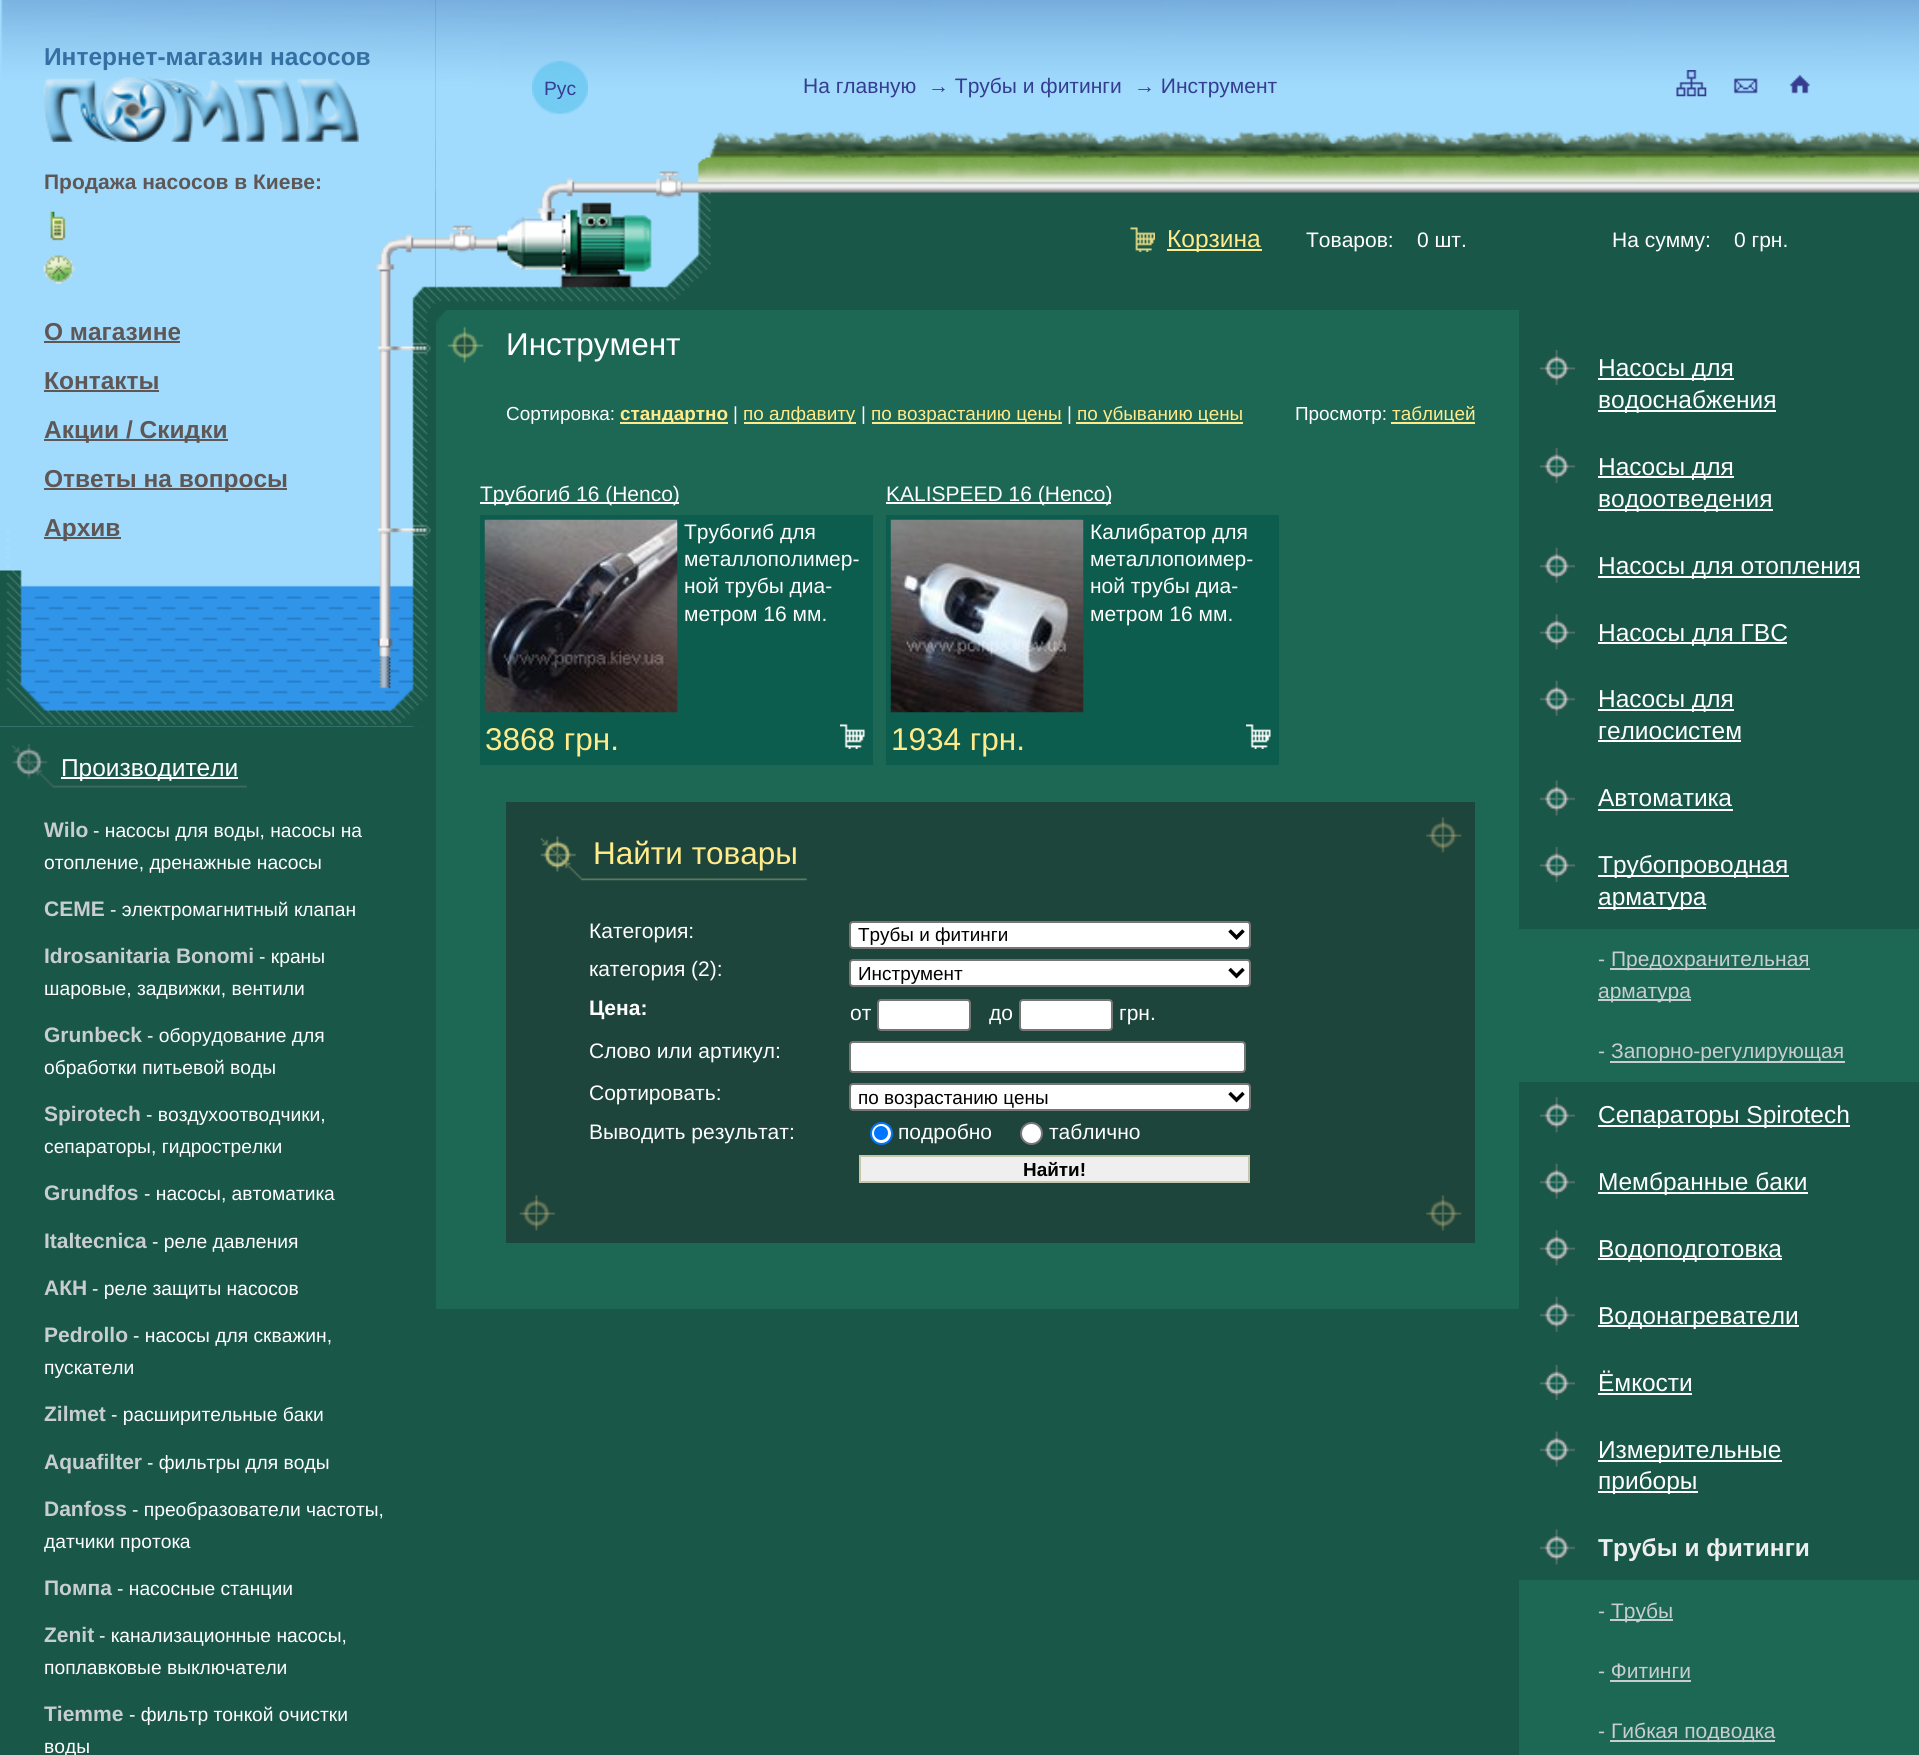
import math
import cairo

surface = cairo.ImageSurface(cairo.Format.RGB24, 1919, 1755)
ctx = cairo.Context(surface)
options = cairo.FontOptions()
options.set_hint_metrics(cairo.HintMetrics.OFF)
options.set_hint_style(cairo.HintStyle.NONE)
ctx.set_font_options(options)
ctx.set_miter_limit(4)


def ink(r, g, b):
    ctx.set_source_rgb(r / 255, g / 255, b / 255)


def write(x, y, s, family, size, color, bold=False, italic=False):
    ctx.select_font_face(family, cairo.FontSlant.ITALIC if italic else cairo.FontSlant.NORMAL, cairo.FontWeight.BOLD if bold else cairo.FontWeight.NORMAL)
    ctx.set_font_size(size)
    ink(*color)
    ctx.move_to(x, y)
    ctx.show_text(s)


def block(x, y, w, h, *color):
    ink(*color)
    ctx.rectangle(x, y, w, h)
    ctx.fill()


def round_path(x, y, w, h, r):
    ctx.new_sub_path()
    for i, (u, v) in enumerate([(x + w - r, y + h - r), (x + r, y + h - r), (x + r, y + r), (x + w - r, y + r)]):
        ctx.arc(u, v, r, i * math.pi / 2, (i + 1) * math.pi / 2)
    ctx.close_path()


def paste(path, x, y, w, h):
    ctx.save()
    ctx.set_source_surface(cairo.ImageSurface.create_from_png(path), x, y)
    ctx.rectangle(x, y, w, h)
    ctx.fill()
    ctx.restore()


s1 = dict(family="Liberation Sans", size=24.5, color=(53, 112, 163), bold=True)
s2 = dict(family="Liberation Sans", size=21, color=(95, 87, 86), bold=True)
s3 = dict(family="Liberation Sans", size=24.5, color=(95, 87, 86), bold=True)
s4 = dict(family="Liberation Sans", size=24.5, color=(255, 255, 255))
s5 = dict(family="Liberation Sans", size=21, color=(199, 205, 209), bold=True)
s6 = dict(family="Liberation Sans", size=19.25, color=(255, 255, 255))
s7 = dict(family="Liberation Sans", size=19.25, color=(53, 61, 145))
s8 = dict(family="Liberation Sans", size=21, color=(53, 61, 145))
s9 = dict(family="Liberation Sans", size=24.5, color=(255, 235, 139))
s10 = dict(family="Liberation Sans", size=21, color=(255, 255, 255))
s11 = dict(family="Liberation Sans", size=31.5, color=(255, 255, 255))
s12 = dict(family="Liberation Sans", size=18.9, color=(255, 255, 255))
s13 = dict(family="Liberation Sans", size=18.9, color=(255, 235, 139), bold=True)
s14 = dict(family="Liberation Sans", size=18.9, color=(255, 235, 139))
s15 = dict(family="Liberation Sans", size=31.5, color=(255, 235, 139))
s16 = dict(family="Liberation Sans", size=18.9, color=(0, 0, 0))
s17 = dict(family="Liberation Sans", size=21, color=(255, 255, 255), bold=True)
s18 = dict(family="Liberation Sans", size=18.9, color=(0, 0, 0), bold=True)
s19 = dict(family="Liberation Sans", size=21, color=(199, 205, 209))
s20 = dict(family="Liberation Sans", size=24.5, color=(238, 238, 238), bold=True)

ink(25, 88, 73)
ctx.paint()
paste("pic1.png", 435, 0, 1484, 193)
paste("pic2.png", 0, 0, 436, 727)
paste("pic3.png", 1, 0, 435, 354)
paste("pic4.png", 0, 523, 436, 204)
write(44, 65, "Интернет-магазин насосов", **s1)
paste("pic5.png", 43, 77, 316, 65)
write(44, 189, "Продажа насосов в Киеве:", **s2)
paste("pic6.png", 50, 211, 16, 30)
paste("pic7.png", 43, 255, 31, 29)
write(44, 340, "О магазине", **s3)
block(44, 341, 136, 2, 95, 87, 86)
write(44, 389, "Контакты", **s3)
block(44, 390, 115, 2, 95, 87, 86)
block(44, 439, 184, 2, 95, 87, 86)
write(44, 438, "Акции / Скидки", **s3)
block(44, 488, 243, 2, 95, 87, 86)
write(44, 487, "Ответы на вопросы", **s3)
block(44, 537, 77, 2, 95, 87, 86)
write(44, 536, "Архив", **s3)
paste("pic8.png", 12, 743, 235, 45)
block(61, 777, 177, 2, 255, 255, 255)
write(61, 776, "Производители", **s4)
write(44, 837, "Wilo", **s5)
write(93, 837, "- насосы для воды, насосы на", **s6)
write(44, 869, "отопление, дренажные насосы", **s6)
write(44, 916, "CEME", **s5)
write(110, 916, "- электромагнитный клапан", **s6)
write(44, 963, "Idrosanitaria Bonomi", **s5)
write(259, 963, "- краны", **s6)
write(44, 995, "шаровые, задвижки, вентили", **s6)
write(44, 1042, "Grunbeck", **s5)
write(147, 1042, "- оборудование для", **s6)
write(44, 1074, "обработки питьевой воды", **s6)
write(44, 1121, "Spirotech", **s5)
write(146, 1121, "- воздухоотводчики,", **s6)
write(44, 1153, "сепараторы, гидрострелки", **s6)
write(44, 1200, "Grundfos", **s5)
write(144, 1200, "- насосы, автоматика", **s6)
write(44, 1248, "Italtecnica", **s5)
write(152, 1248, "- реле давления", **s6)
write(44, 1295, "АКН", **s5)
write(92, 1295, "- реле защиты насосов", **s6)
write(44, 1342, "Pedrollo", **s5)
write(133, 1342, "- насосы для скважин,", **s6)
write(44, 1374, "пускатели", **s6)
write(44, 1421, "Zilmet", **s5)
write(111, 1421, "- расширительные баки", **s6)
write(44, 1469, "Aquafilter", **s5)
write(147, 1469, "- фильтры для воды", **s6)
write(44, 1516, "Danfoss", **s5)
write(132, 1516, "- преобразователи частоты,", **s6)
write(44, 1548, "датчики протока", **s6)
write(44, 1595, "Помпа", **s5)
write(117, 1595, "- насосные станции", **s6)
write(44, 1642, "Zenit", **s5)
write(99, 1642, "- канализационные насосы,", **s6)
write(44, 1674, "поплавковые выключатели", **s6)
write(44, 1721, "Tiemme", **s5)
write(129, 1721, "- фильтр тонкой очистки", **s6)
write(44, 1753, "воды", **s6)
paste("pic9.png", 435, 0, 284, 161)
paste("pic10.png", 532, 61, 56, 53)
write(544, 95, "Рус", **s7)
write(803, 93, "На главную", **s8)
write(928, 93, "→ Трубы и фитинги", **s8)
write(1134, 93, "→ Инструмент", **s8)
paste("pic11.png", 1676, 70, 31, 27)
paste("pic12.png", 1733, 78, 25, 16)
paste("pic13.png", 1789, 74, 21, 20)
paste("pic14.png", 436, 161, 285, 141)
paste("pic15.png", 1130, 227, 25, 25)
block(1167, 249, 95, 2, 255, 235, 139)
write(1167, 247, "Корзина", **s9)
write(1306, 247, "Товаров:", **s10)
write(1417, 247, "0 шт.", **s10)
write(1612, 247, "На сумму:", **s10)
write(1734, 247, "0 грн.", **s10)
block(436, 310, 1083, 999, 29, 103, 85)
paste("pic16.png", 436, 310, 48, 53)
write(506, 355, "Инструмент", **s11)
write(506, 420, "Сортировка:", **s12)
block(620, 422, 108, 2, 255, 235, 139)
write(620, 420, "стандартно", **s13)
write(733, 420, "|", **s12)
block(744, 422, 112, 2, 255, 235, 139)
write(743, 420, "по алфавиту", **s14)
write(861, 420, "|", **s12)
block(872, 422, 190, 2, 255, 235, 139)
write(871, 420, "по возрастанию цены", **s14)
write(1067, 420, "|", **s12)
block(1076, 422, 167, 2, 255, 235, 139)
write(1077, 420, "по убыванию цены", **s14)
write(1295, 420, "Просмотр:", **s12)
block(1391, 422, 84, 2, 255, 235, 139)
write(1392, 420, "таблицей", **s14)
block(480, 502, 199, 2, 255, 255, 255)
write(480, 501, "Трубогиб 16 (Henco)", **s10)
block(480, 515, 393, 250, 12, 93, 77)
paste("pic17.png", 484, 519, 194, 194)
write(684, 539, "Трубогиб для", **s10)
write(684, 566, "металлополимер-", **s10)
write(684, 593, "ной трубы диа-", **s10)
write(684, 621, "метром 16 мм.", **s10)
write(485, 750, "3868 грн.", **s15)
paste("pic18.png", 840, 724, 25, 25)
block(886, 502, 225, 2, 255, 255, 255)
write(886, 501, "KALISPEED 16 (Henco)", **s10)
block(886, 515, 393, 250, 12, 93, 77)
paste("pic19.png", 890, 519, 194, 194)
write(1090, 539, "Калибратор для", **s10)
write(1090, 566, "металлопоимер-", **s10)
write(1090, 593, "ной трубы диа-", **s10)
write(1090, 621, "метром 16 мм.", **s10)
write(891, 750, "1934 грн.", **s15)
paste("pic20.png", 1246, 724, 25, 25)
block(506, 802, 969, 441, 30, 69, 60)
paste("pic21.png", 1426, 817, 36, 36)
paste("pic22.png", 519, 1195, 37, 36)
paste("pic21.png", 1426, 1195, 36, 36)
paste("pic23.png", 540, 836, 267, 45)
write(593, 864, "Найти товары", **s15)
write(589, 938, "Категория:", **s10)
round_path(850, 922, 400, 26, 3)
ctx.fill_preserve()
ink(118, 118, 118)
ctx.stroke()
ctx.new_path()
ctx.move_to(1229.5, 930.5)
ctx.line_to(1236.5, 937.5)
ctx.line_to(1243.5, 930.5)
ink(0, 0, 0)
ctx.set_line_width(3.5)
ctx.stroke()
write(858, 941, "Трубы и фитинги", **s16)
write(589, 976, "категория (2):", **s10)
round_path(850, 960, 400, 26, 3)
ctx.fill_preserve()
ink(118, 118, 118)
ctx.set_line_width(2)
ctx.stroke()
ctx.new_path()
ctx.move_to(1229.5, 969)
ctx.line_to(1236.5, 976)
ctx.line_to(1243.5, 969)
ink(0, 0, 0)
ctx.set_line_width(3.5)
ctx.stroke()
write(858, 980, "Инструмент", **s16)
write(589, 1015, "Цена:", **s17)
write(850, 1020, "от", **s10)
round_path(878, 1000, 92, 30, 3)
ctx.fill_preserve()
ink(118, 118, 118)
ctx.set_line_width(2)
ctx.stroke()
write(989, 1020, "до", **s10)
round_path(1020, 1000, 92, 30, 3)
ctx.fill_preserve()
ink(118, 118, 118)
ctx.stroke()
write(1119, 1020, "грн.", **s10)
write(589, 1058, "Слово или артикул:", **s10)
round_path(850, 1042, 395, 30, 3)
ctx.fill_preserve()
ink(118, 118, 118)
ctx.stroke()
write(589, 1100, "Сортировать:", **s10)
round_path(850, 1084, 400, 26, 3)
ctx.fill_preserve()
ink(118, 118, 118)
ctx.stroke()
ctx.new_path()
ctx.move_to(1229.5, 1093)
ctx.line_to(1236.5, 1100)
ctx.line_to(1243.5, 1093)
ink(0, 0, 0)
ctx.set_line_width(3.5)
ctx.stroke()
write(858, 1104, "по возрастанию цены", **s16)
write(589, 1139, "Выводить результат:", **s10)
ctx.new_path()
ctx.arc(881.5, 1133.5, 10.5, 0, 2 * math.pi)
ctx.fill_preserve()
ink(0, 117, 255)
ctx.set_line_width(2)
ctx.stroke()
ctx.arc(881, 1133, 7, 0, 2 * math.pi)
ctx.fill()
write(898, 1139, "подробно", **s10)
ctx.new_path()
ctx.arc(1031.5, 1133.5, 10.5, 0, 2 * math.pi)
ctx.fill_preserve()
ink(118, 118, 118)
ctx.stroke()
write(1049, 1139, "таблично", **s10)
ink(239, 239, 239)
ctx.rectangle(860, 1156, 389, 26)
ctx.fill_preserve()
ink(198, 198, 172)
ctx.stroke()
write(1023, 1176, "Найти!", **s18)
paste("pic24.png", 1540, 350, 35, 35)
block(1598, 378, 136, 2, 255, 255, 255)
write(1598, 376, "Насосы для", **s4)
block(1598, 410, 178, 2, 255, 255, 255)
write(1598, 408, "водоснабжения", **s4)
paste("pic24.png", 1540, 448, 35, 35)
block(1598, 476, 136, 2, 255, 255, 255)
write(1598, 475, "Насосы для", **s4)
block(1598, 509, 175, 2, 255, 255, 255)
write(1598, 507, "водоотведения", **s4)
paste("pic25.png", 1540, 547, 35, 36)
block(1598, 576, 262, 2, 255, 255, 255)
write(1598, 574, "Насосы для отопления", **s4)
paste("pic26.png", 1540, 614, 35, 36)
block(1598, 642, 189, 2, 255, 255, 255)
write(1598, 641, "Насосы для ГВС", **s4)
paste("pic25.png", 1540, 680, 35, 36)
block(1598, 709, 136, 2, 255, 255, 255)
write(1598, 707, "Насосы для", **s4)
write(1598, 739, "гелиосистем", **s4)
block(1598, 740, 143, 2, 255, 255, 255)
paste("pic27.png", 1540, 780, 35, 36)
write(1598, 806, "Автоматика", **s4)
block(1598, 809, 135, 2, 255, 255, 255)
paste("pic24.png", 1540, 847, 35, 35)
block(1598, 875, 191, 2, 255, 255, 255)
write(1598, 873, "Трубопроводная", **s4)
block(1598, 907, 108, 2, 255, 255, 255)
write(1598, 905, "арматура", **s4)
block(1519, 929, 400, 153, 29, 103, 85)
write(1598, 966, "-", **s19)
block(1610, 968, 200, 2, 199, 205, 209)
write(1611, 966, "Предохранительная", **s19)
block(1598, 999, 93, 2, 199, 205, 209)
write(1598, 998, "арматура", **s19)
write(1598, 1058, "-", **s19)
block(1610, 1061, 235, 2, 199, 205, 209)
write(1611, 1058, "Запорно-регулирующая", **s19)
paste("pic26.png", 1540, 1097, 35, 36)
block(1598, 1125, 252, 2, 255, 255, 255)
write(1598, 1123, "Сепараторы Spirotech", **s4)
paste("pic25.png", 1540, 1163, 35, 36)
block(1598, 1192, 210, 2, 255, 255, 255)
write(1598, 1190, "Мембранные баки", **s4)
paste("pic26.png", 1540, 1230, 35, 36)
block(1598, 1258, 184, 2, 255, 255, 255)
write(1598, 1257, "Водоподготовка", **s4)
paste("pic25.png", 1540, 1296, 35, 36)
block(1598, 1325, 201, 2, 255, 255, 255)
write(1598, 1324, "Водонагреватели", **s4)
paste("pic24.png", 1540, 1365, 35, 35)
write(1598, 1391, "Ёмкости", **s4)
block(1598, 1393, 94, 2, 255, 255, 255)
paste("pic27.png", 1540, 1431, 35, 36)
block(1598, 1460, 184, 2, 255, 255, 255)
write(1598, 1458, "Измерительные", **s4)
block(1598, 1491, 100, 2, 255, 255, 255)
write(1598, 1489, "приборы", **s4)
paste("pic27.png", 1540, 1529, 35, 36)
write(1598, 1556, "Трубы и фитинги", **s20)
block(1519, 1580, 400, 175, 29, 103, 85)
write(1598, 1618, "-", **s19)
block(1610, 1619, 63, 2, 199, 205, 209)
write(1611, 1618, "Трубы", **s19)
write(1598, 1678, "- Фитинги", **s19)
block(1610, 1680, 81, 2, 199, 205, 209)
write(1598, 1738, "-", **s19)
block(1610, 1740, 165, 2, 199, 205, 209)
write(1611, 1738, "Гибкая подводка", **s19)
surface.write_to_png("screenshot.png")
